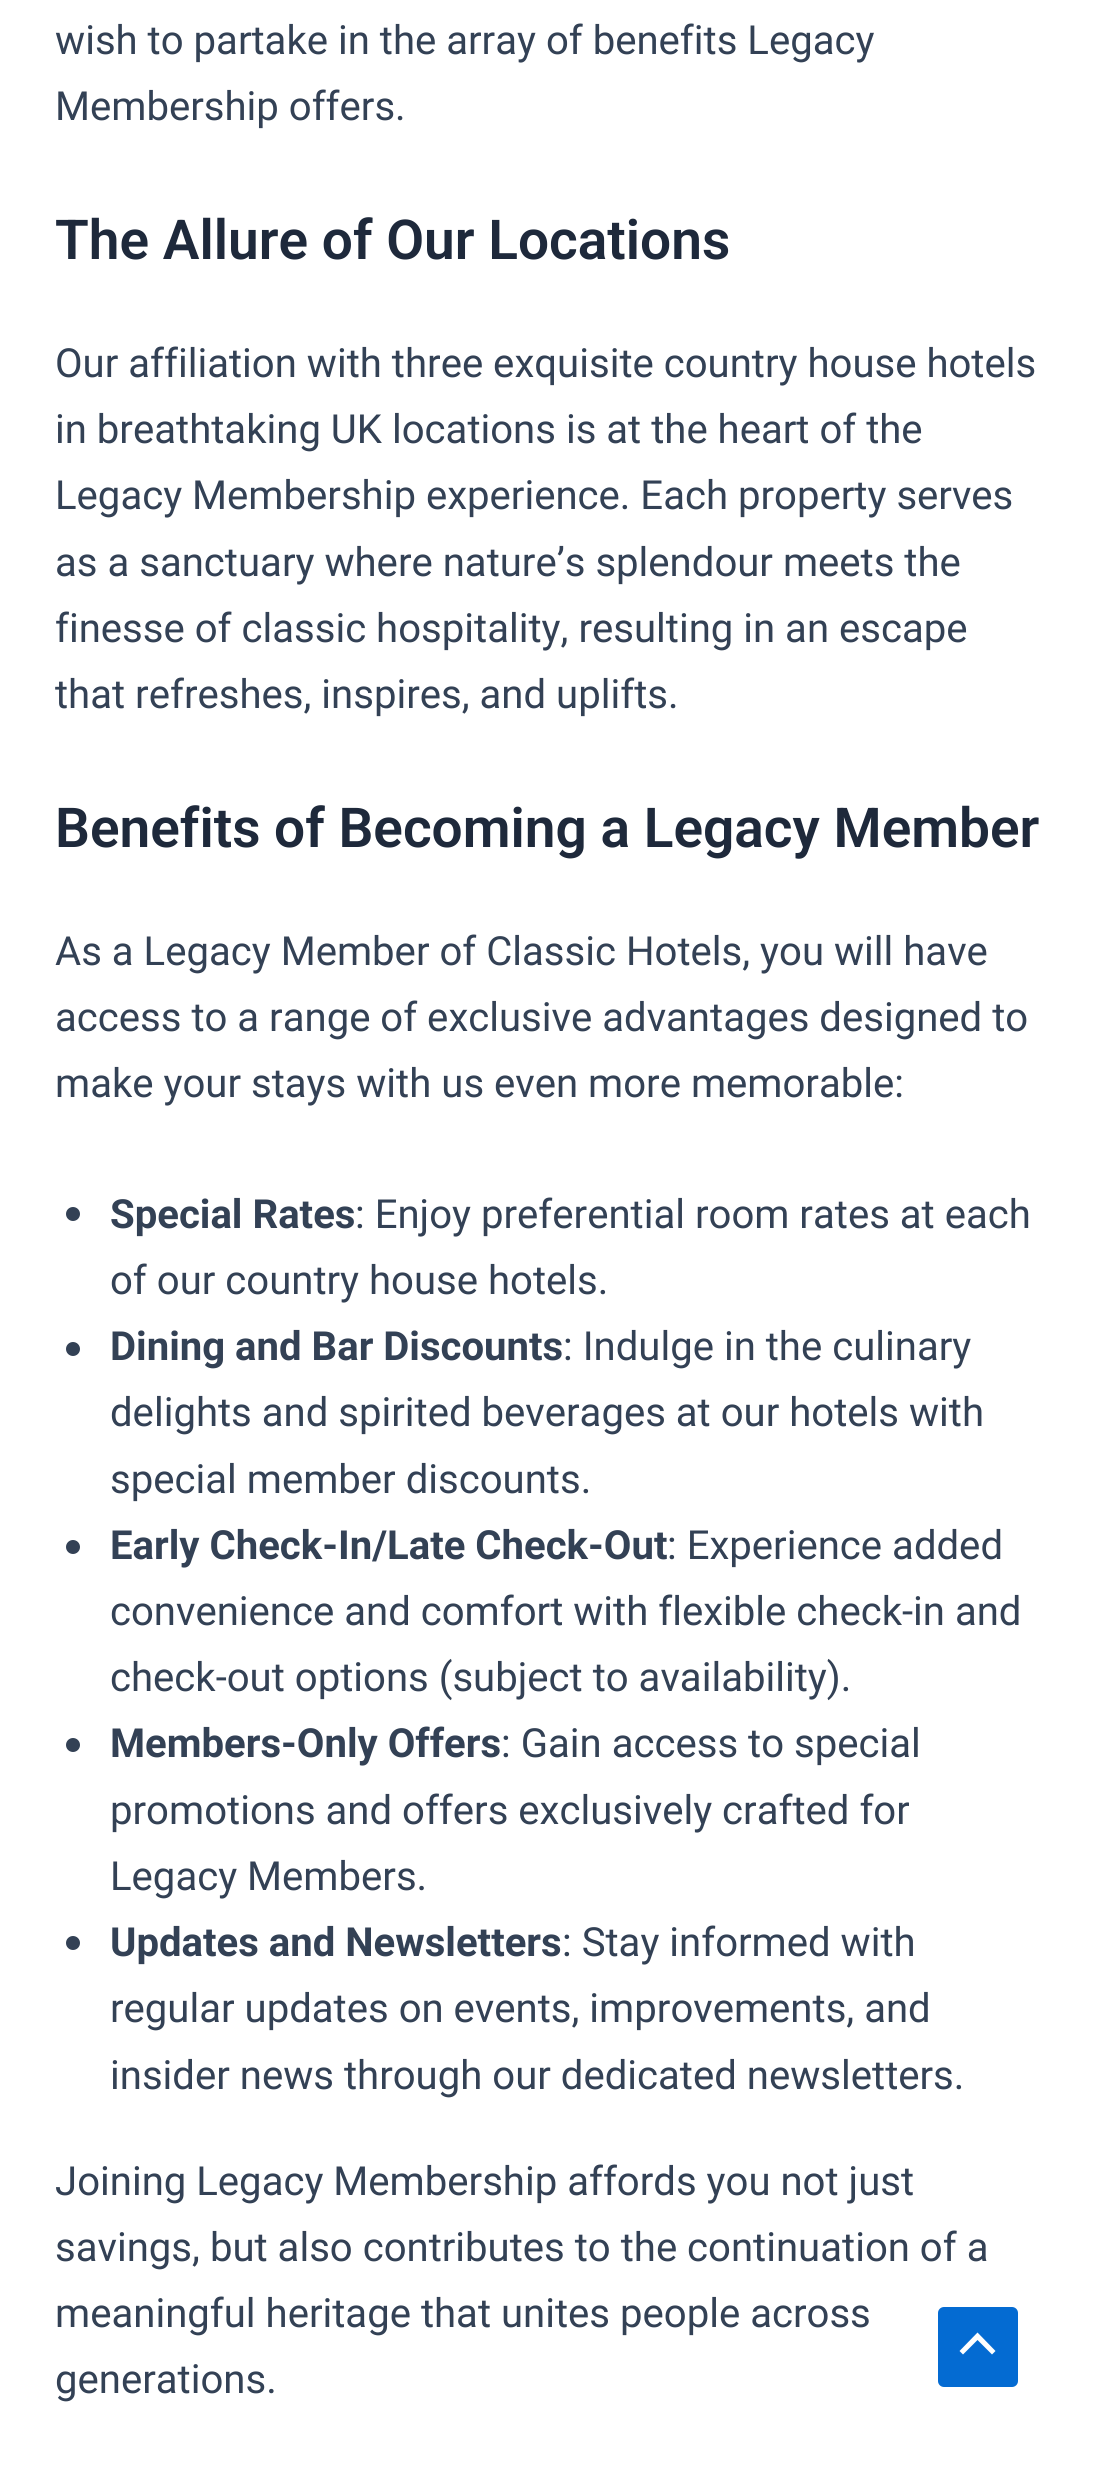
import math
import cairo

surface = cairo.ImageSurface(cairo.Format.RGB24, 1098, 2468)
ctx = cairo.Context(surface)
options = cairo.FontOptions()
options.set_hint_metrics(cairo.HintMetrics.OFF)
options.set_hint_style(cairo.HintStyle.NONE)
ctx.set_font_options(options)
ctx.set_miter_limit(4)


def ink(r, g, b):
    ctx.set_source_rgb(r / 255, g / 255, b / 255)


def write(x, y, s, family, size, color, bold=False, italic=False):
    ctx.select_font_face(family, cairo.FontSlant.ITALIC if italic else cairo.FontSlant.NORMAL, cairo.FontWeight.BOLD if bold else cairo.FontWeight.NORMAL)
    ctx.set_font_size(size)
    ink(*color)
    ctx.move_to(x, y)
    ctx.show_text(s)


def round_path(x, y, w, h, r):
    ctx.new_sub_path()
    for i, (u, v) in enumerate([(x + w - r, y + h - r), (x + r, y + h - r), (x + r, y + r), (x + w - r, y + r)]):
        ctx.arc(u, v, r, i * math.pi / 2, (i + 1) * math.pi / 2)
    ctx.close_path()


s1 = dict(family="Roboto", size=40.1, color=(51, 65, 85))
s2 = dict(family="Roboto SemiBold", size=55, color=(30, 41, 59))
s3 = dict(family="Roboto", size=40.1, color=(51, 65, 85), bold=True)

ink(255, 255, 255)
ctx.paint()
write(55, 54, "wish to partake in the array of benefits Legacy", **s1)
write(55, 120, "Membership offers.", **s1)
write(55, 259, "The Allure of Our Locations", **s2)
write(55, 377, "Our affiliation with three exquisite country house hotels", **s1)
write(55, 443, "in breathtaking UK locations is at the heart of the", **s1)
write(55, 509, "Legacy Membership experience. Each property serves", **s1)
write(55, 576, "as a sanctuary where nature’s splendour meets the", **s1)
write(55, 642, "finesse of classic hospitality, resulting in an escape", **s1)
write(55, 708, "that refreshes, inspires, and uplifts.", **s1)
write(55, 847, "Benefits of Becoming a Legacy Member", **s2)
write(55, 965, "As a Legacy Member of Classic Hotels, you will have", **s1)
write(55, 1031, "access to a range of exclusive advantages designed to", **s1)
write(55, 1097, "make your stays with us even more memorable:", **s1)
ctx.new_path()
ctx.arc(73, 1214, 7, 0, 2 * math.pi)
ctx.fill()
write(110, 1228, "Special Rates", **s3)
write(355, 1228, ": Enjoy preferential room rates at each", **s1)
write(110, 1294, "of our country house hotels.", **s1)
ctx.new_path()
ctx.arc(73, 1349, 7, 0, 2 * math.pi)
ctx.fill()
write(110, 1360, "Dining and Bar Discounts", **s3)
write(563, 1360, ": Indulge in the culinary", **s1)
write(110, 1426, "delights and spirited beverages at our hotels with", **s1)
write(110, 1493, "special member discounts.", **s1)
ctx.new_path()
ctx.arc(73, 1547, 7, 0, 2 * math.pi)
ctx.fill()
write(110, 1559, "Early Check-In/Late Check-Out", **s3)
write(667, 1559, ": Experience added", **s1)
write(110, 1625, "convenience and comfort with flexible check-in and", **s1)
write(110, 1691, "check-out options (subject to availability).", **s1)
ctx.new_path()
ctx.arc(73, 1745, 7, 0, 2 * math.pi)
ctx.fill()
write(110, 1757, "Members-Only Offers", **s3)
write(501, 1757, ": Gain access to special", **s1)
write(110, 1824, "promotions and offers exclusively crafted for", **s1)
write(110, 1890, "Legacy Members.", **s1)
ctx.new_path()
ctx.arc(73, 1943, 7, 0, 2 * math.pi)
ctx.fill()
write(110, 1956, "Updates and Newsletters", **s3)
write(562, 1956, ": Stay informed with", **s1)
write(110, 2022, "regular updates on events, improvements, and", **s1)
write(110, 2089, "insider news through our dedicated newsletters.", **s1)
write(55, 2195, "Joining Legacy Membership affords you not just", **s1)
write(55, 2261, "savings, but also contributes to the continuation of a", **s1)
write(55, 2327, "meaningful heritage that unites people across", **s1)
write(55, 2393, "generations.", **s1)
ink(4, 107, 210)
round_path(938, 2307, 80, 80, 6)
ctx.fill()
ink(255, 255, 255)
ctx.new_path()
ctx.move_to(995.5, 2351)
ctx.line_to(977.5, 2332.5)
ctx.line_to(959.5, 2351)
ctx.line_to(963, 2354.5)
ctx.line_to(977.5, 2340)
ctx.line_to(992, 2354.5)
ctx.close_path()
ctx.fill()
surface.write_to_png("screenshot.png")
